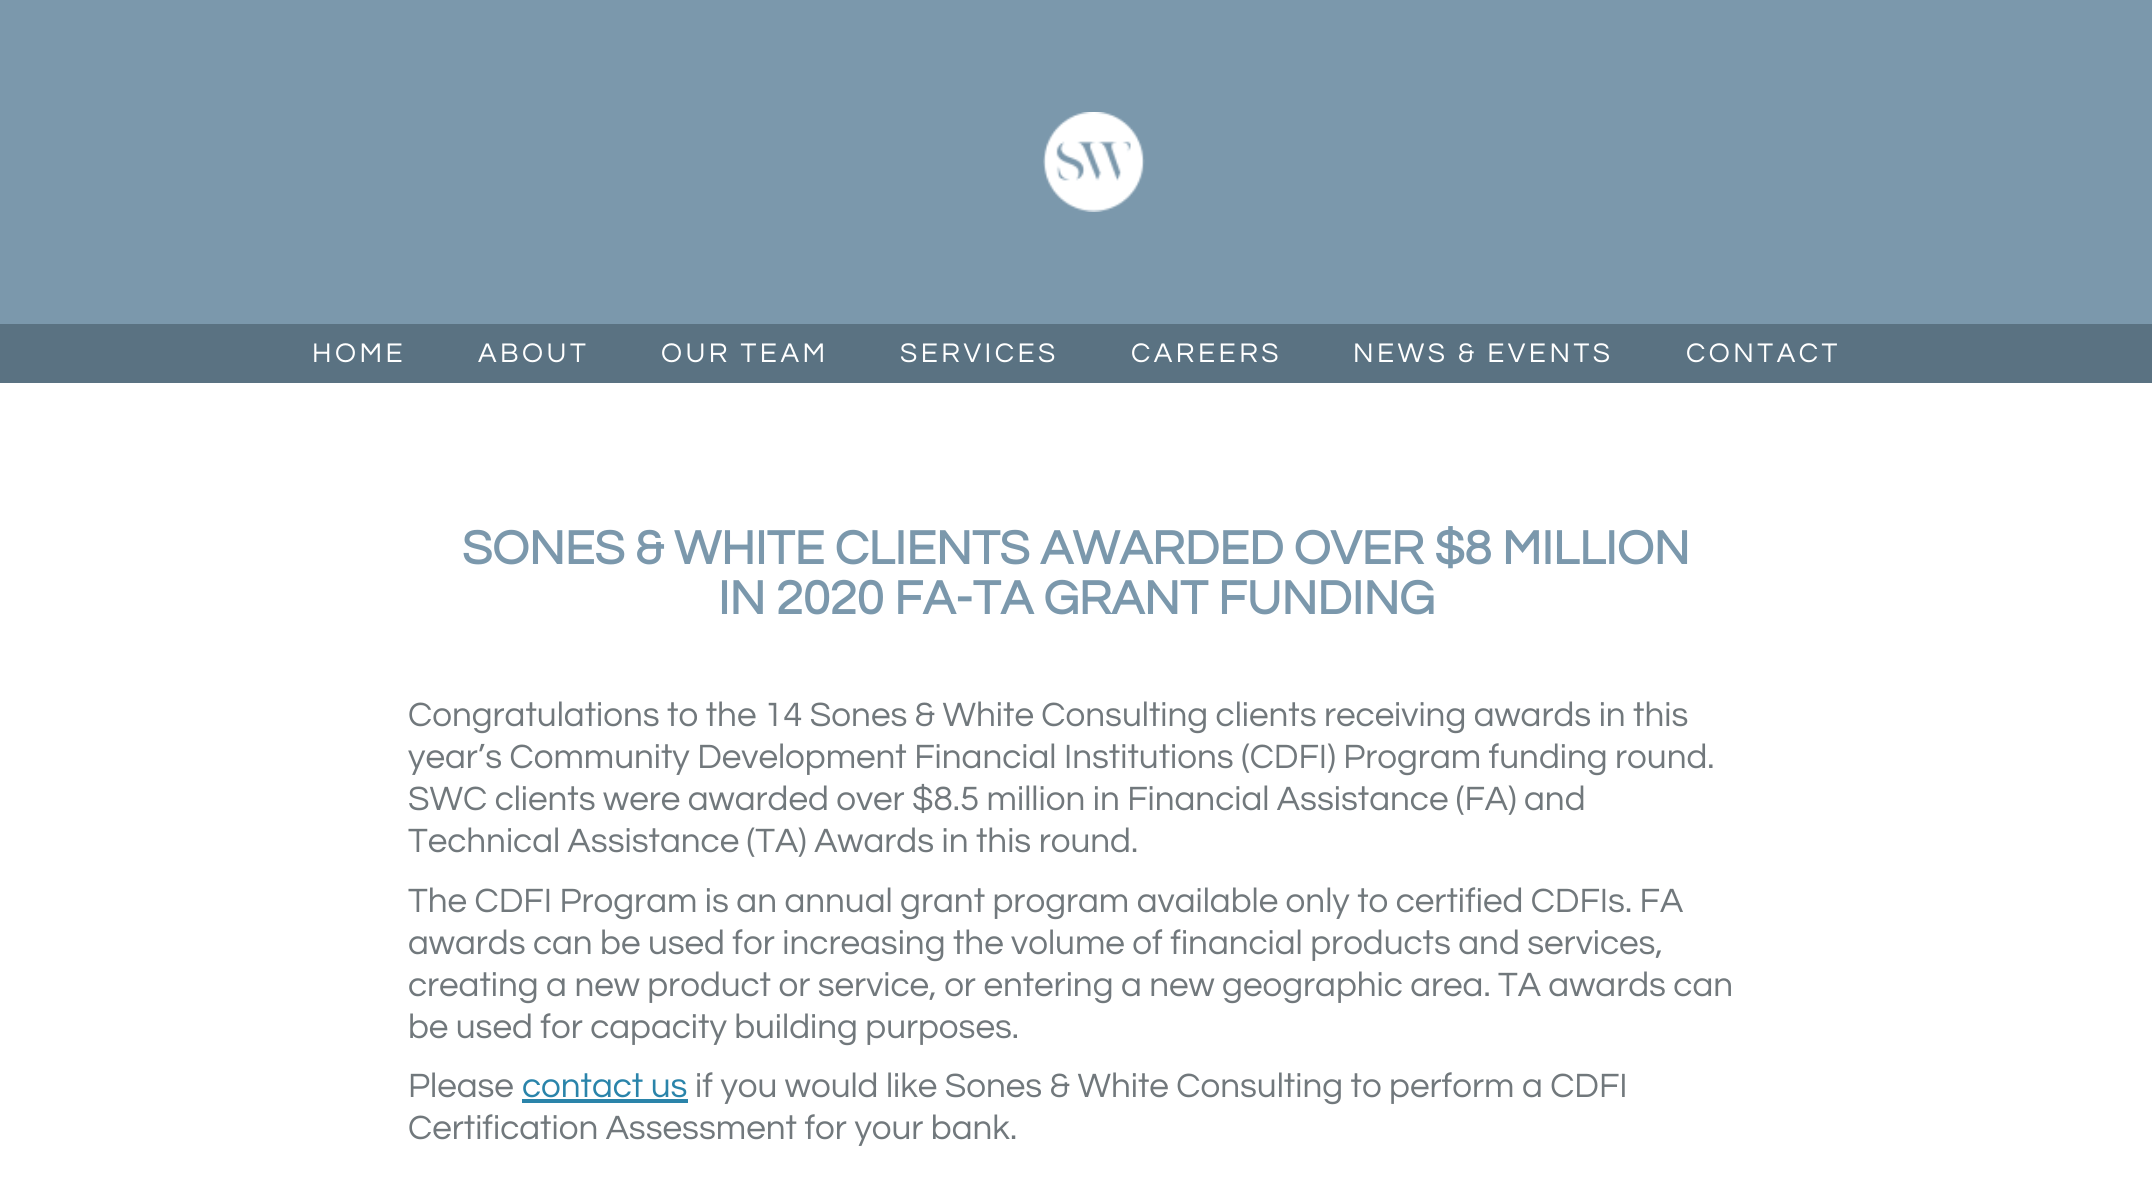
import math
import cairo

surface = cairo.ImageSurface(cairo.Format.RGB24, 2152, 1181)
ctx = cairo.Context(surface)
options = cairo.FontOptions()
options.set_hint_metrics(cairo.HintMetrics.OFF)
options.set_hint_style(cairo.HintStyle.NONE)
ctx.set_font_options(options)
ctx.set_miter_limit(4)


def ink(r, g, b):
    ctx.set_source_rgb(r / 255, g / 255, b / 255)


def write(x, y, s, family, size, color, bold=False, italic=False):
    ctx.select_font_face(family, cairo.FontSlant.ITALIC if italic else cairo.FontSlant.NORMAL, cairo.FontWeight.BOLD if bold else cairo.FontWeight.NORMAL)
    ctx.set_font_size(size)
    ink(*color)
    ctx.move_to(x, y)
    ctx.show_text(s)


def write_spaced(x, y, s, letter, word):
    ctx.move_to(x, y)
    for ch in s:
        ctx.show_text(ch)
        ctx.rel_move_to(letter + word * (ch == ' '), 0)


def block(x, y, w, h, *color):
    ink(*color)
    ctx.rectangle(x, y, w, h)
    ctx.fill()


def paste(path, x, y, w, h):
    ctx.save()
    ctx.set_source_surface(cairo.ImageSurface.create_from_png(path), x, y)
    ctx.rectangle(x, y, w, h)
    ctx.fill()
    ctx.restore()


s1 = dict(family="Questrial", size=49, color=(123, 152, 172), bold=True)
s2 = dict(family="Questrial", size=35, color=(113, 120, 124))
s3 = dict(family="Questrial", size=35, color=(42, 132, 170))

ink(255, 255, 255)
ctx.paint()
block(0, 0, 2152, 324, 123, 152, 172)
paste("pic1.png", 1043, 112, 102, 100)
block(0, 324, 2152, 59, 90, 114, 130)
ctx.select_font_face("Questrial")
ctx.set_font_size(28)
ink(255, 255, 255)
write_spaced(312, 362, "HOME", 3.5, 0)
write_spaced(478, 362, "ABOUT", 3.5, 0)
write_spaced(661, 362, "OUR TEAM", 3.5, 0)
write_spaced(900, 362, "SERVICES", 3.5, 0)
write_spaced(1131, 362, "CAREERS", 3.5, 0)
write_spaced(1353, 362, "NEWS & EVENTS", 3.5, 0)
write_spaced(1686, 362, "CONTACT", 3.5, 0)
write(462, 564, "SONES & WHITE CLIENTS AWARDED OVER $8 MILLION", **s1)
write(718, 614, "IN 2020 FA-TA GRANT FUNDING", **s1)
write(408, 726, "Congratulations to the 14 Sones & White Consulting clients receiving awards in this", **s2)
write(408, 768, "year’s Community Development Financial Institutions (CDFI) Program funding round.", **s2)
write(408, 810, "SWC clients were awarded over $8.5 million in Financial Assistance (FA) and", **s2)
write(408, 852, "Technical Assistance (TA) Awards in this round.", **s2)
write(408, 912, "The CDFI Program is an annual grant program available only to certified CDFIs. FA", **s2)
write(408, 954, "awards can be used for increasing the volume of financial products and services,", **s2)
write(408, 996, "creating a new product or service, or entering a new geographic area. TA awards can", **s2)
write(408, 1038, "be used for capacity building purposes.", **s2)
write(408, 1097, "Please", **s2)
write(522, 1097, "contact us", **s3)
block(522, 1099, 166, 4, 42, 132, 170)
write(695, 1097, "if you would like Sones & White Consulting to perform a CDFI", **s2)
write(408, 1139, "Certification Assessment for your bank.", **s2)
surface.write_to_png("screenshot.png")
